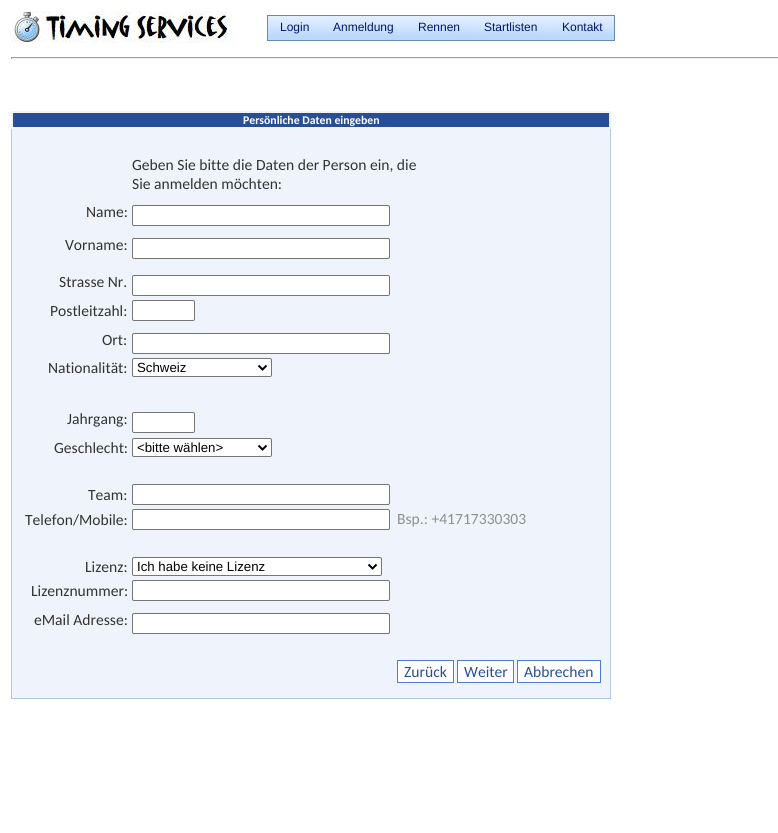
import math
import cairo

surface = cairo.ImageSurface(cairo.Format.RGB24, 778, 833)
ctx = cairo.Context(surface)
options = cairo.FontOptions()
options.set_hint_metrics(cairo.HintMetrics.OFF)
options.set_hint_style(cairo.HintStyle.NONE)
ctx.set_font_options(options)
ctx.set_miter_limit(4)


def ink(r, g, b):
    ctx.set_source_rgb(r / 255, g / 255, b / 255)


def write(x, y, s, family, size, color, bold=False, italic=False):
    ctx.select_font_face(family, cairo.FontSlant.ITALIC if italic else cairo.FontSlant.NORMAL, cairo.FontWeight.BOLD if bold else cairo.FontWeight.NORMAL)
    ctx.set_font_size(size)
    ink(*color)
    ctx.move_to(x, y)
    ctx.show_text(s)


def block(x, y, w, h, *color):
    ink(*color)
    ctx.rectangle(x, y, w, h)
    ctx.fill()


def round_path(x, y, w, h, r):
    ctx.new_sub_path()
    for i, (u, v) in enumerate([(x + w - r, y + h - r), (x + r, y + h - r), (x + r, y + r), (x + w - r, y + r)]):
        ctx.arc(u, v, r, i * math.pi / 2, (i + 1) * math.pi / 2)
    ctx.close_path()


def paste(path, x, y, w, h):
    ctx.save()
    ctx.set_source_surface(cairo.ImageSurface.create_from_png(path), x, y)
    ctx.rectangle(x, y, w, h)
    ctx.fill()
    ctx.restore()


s1 = dict(family="Liberation Sans", size=12, color=(0, 21, 110))
s2 = dict(family="Carlito", size=11.75, color=(255, 255, 255), bold=True)
s3 = dict(family="Carlito", size=15.6, color=(51, 51, 51))
s4 = dict(family="Liberation Sans", size=13.25, color=(0, 0, 0))
s5 = dict(family="Carlito", size=15.6, color=(144, 144, 144))
s6 = dict(family="Carlito", size=15.6, color=(40, 78, 152))

ink(255, 255, 255)
ctx.paint()
paste("pic1.png", 11, 11, 220, 33)
block(268, 35, 346, 5, 187, 217, 255)
paste("pic2.png", 268, 16, 346, 19)
ctx.rectangle(267.5, 15.5, 347, 25)
ink(104, 140, 175)
ctx.set_line_width(1)
ctx.stroke()
write(280, 31, "Login", **s1)
write(333, 31, "Anmeldung", **s1)
write(418, 31, "Rennen", **s1)
write(484, 31, "Startlisten", **s1)
write(562, 31, "Kontakt", **s1)
block(11, 57, 767, 1, 159, 159, 159)
block(11, 58, 767, 1, 238, 238, 238)
block(11, 57, 1, 2, 159, 159, 159)
block(12, 129, 598, 569, 239, 243, 251)
block(610, 129, 1, 570, 181, 199, 222)
block(11, 698, 600, 1, 181, 199, 222)
block(11, 129, 1, 570, 181, 199, 222)
block(13, 113, 596, 14, 40, 78, 152)
block(11, 111, 600, 2, 239, 243, 251)
block(609, 111, 2, 18, 239, 243, 251)
block(11, 127, 600, 2, 239, 243, 251)
block(11, 111, 2, 18, 239, 243, 251)
write(243, 124, "Persönliche Daten eingeben", **s2)
write(132, 170, "Geben Sie bitte die Daten der Person ein, die", **s3)
write(132, 189, "Sie anmelden möchten:", **s3)
write(86, 217, "Name:", **s3)
ink(255, 255, 255)
round_path(132.5, 205.5, 257, 20, 1.5)
ctx.fill_preserve()
ink(118, 118, 118)
ctx.stroke()
write(65, 250, "Vorname:", **s3)
ink(255, 255, 255)
round_path(132.5, 238.5, 257, 20, 1.5)
ctx.fill_preserve()
ink(118, 118, 118)
ctx.stroke()
write(59, 287, "Strasse Nr.", **s3)
ink(255, 255, 255)
round_path(132.5, 275.5, 257, 20, 1.5)
ctx.fill_preserve()
ink(118, 118, 118)
ctx.stroke()
write(50, 316, "Postleitzahl:", **s3)
ink(255, 255, 255)
round_path(132.5, 300.5, 62, 20, 1.5)
ctx.fill_preserve()
ink(118, 118, 118)
ctx.stroke()
write(102, 345, "Ort:", **s3)
ink(255, 255, 255)
round_path(132.5, 333.5, 257, 20, 1.5)
ctx.fill_preserve()
ink(118, 118, 118)
ctx.stroke()
write(48, 373, "Nationalität:", **s3)
ink(255, 255, 255)
round_path(132.5, 358.5, 139, 18, 1.5)
ctx.fill_preserve()
ink(118, 118, 118)
ctx.stroke()
ctx.new_path()
ctx.move_to(258.5, 365.5)
ctx.line_to(262.5, 369.5)
ctx.line_to(266.5, 365.5)
ink(0, 0, 0)
ctx.set_line_width(2)
ctx.stroke()
write(137, 372, "Schweiz", **s4)
write(67, 424, "Jahrgang:", **s3)
ink(255, 255, 255)
round_path(132.5, 412.5, 62, 20, 1.5)
ctx.fill_preserve()
ink(118, 118, 118)
ctx.set_line_width(1)
ctx.stroke()
write(54, 453, "Geschlecht:", **s3)
ink(255, 255, 255)
round_path(132.5, 438.5, 139, 18, 1.5)
ctx.fill_preserve()
ink(118, 118, 118)
ctx.stroke()
ctx.new_path()
ctx.move_to(258.5, 445.5)
ctx.line_to(262.5, 449.5)
ctx.line_to(266.5, 445.5)
ink(0, 0, 0)
ctx.set_line_width(2)
ctx.stroke()
write(137, 452, "<bitte wählen>", **s4)
write(88, 500, "Team:", **s3)
ink(255, 255, 255)
round_path(132.5, 484.5, 257, 20, 1.5)
ctx.fill_preserve()
ink(118, 118, 118)
ctx.set_line_width(1)
ctx.stroke()
write(25, 525, "Telefon/Mobile:", **s3)
ink(255, 255, 255)
round_path(132.5, 509.5, 257, 20, 1.5)
ctx.fill_preserve()
ink(118, 118, 118)
ctx.stroke()
write(397, 524, "Bsp.: +41717330303", **s5)
write(85, 572, "Lizenz:", **s3)
ink(255, 255, 255)
round_path(132.5, 557.5, 249, 18, 1.5)
ctx.fill_preserve()
ink(118, 118, 118)
ctx.stroke()
ctx.new_path()
ctx.move_to(368.5, 564.5)
ctx.line_to(372.5, 568.5)
ctx.line_to(376.5, 564.5)
ink(0, 0, 0)
ctx.set_line_width(2)
ctx.stroke()
write(137, 571, "Ich habe keine Lizenz", **s4)
write(31, 596, "Lizenznummer:", **s3)
ink(255, 255, 255)
round_path(132.5, 580.5, 257, 20, 1.5)
ctx.fill_preserve()
ink(118, 118, 118)
ctx.set_line_width(1)
ctx.stroke()
write(34, 625, "eMail Adresse:", **s3)
ink(255, 255, 255)
round_path(132.5, 613.5, 257, 20, 1.5)
ctx.fill_preserve()
ink(118, 118, 118)
ctx.stroke()
ink(255, 255, 255)
ctx.rectangle(397.5, 660.5, 56, 22)
ctx.fill_preserve()
ink(80, 124, 209)
ctx.stroke()
write(404, 677, "Zurück", **s6)
ink(255, 255, 255)
ctx.rectangle(457.5, 660.5, 56, 22)
ctx.fill_preserve()
ink(80, 124, 209)
ctx.stroke()
write(464, 677, "Weiter", **s6)
ink(255, 255, 255)
ctx.rectangle(517.5, 660.5, 83, 22)
ctx.fill_preserve()
ink(80, 124, 209)
ctx.stroke()
write(524, 677, "Abbrechen", **s6)
surface.write_to_png("screenshot.png")
